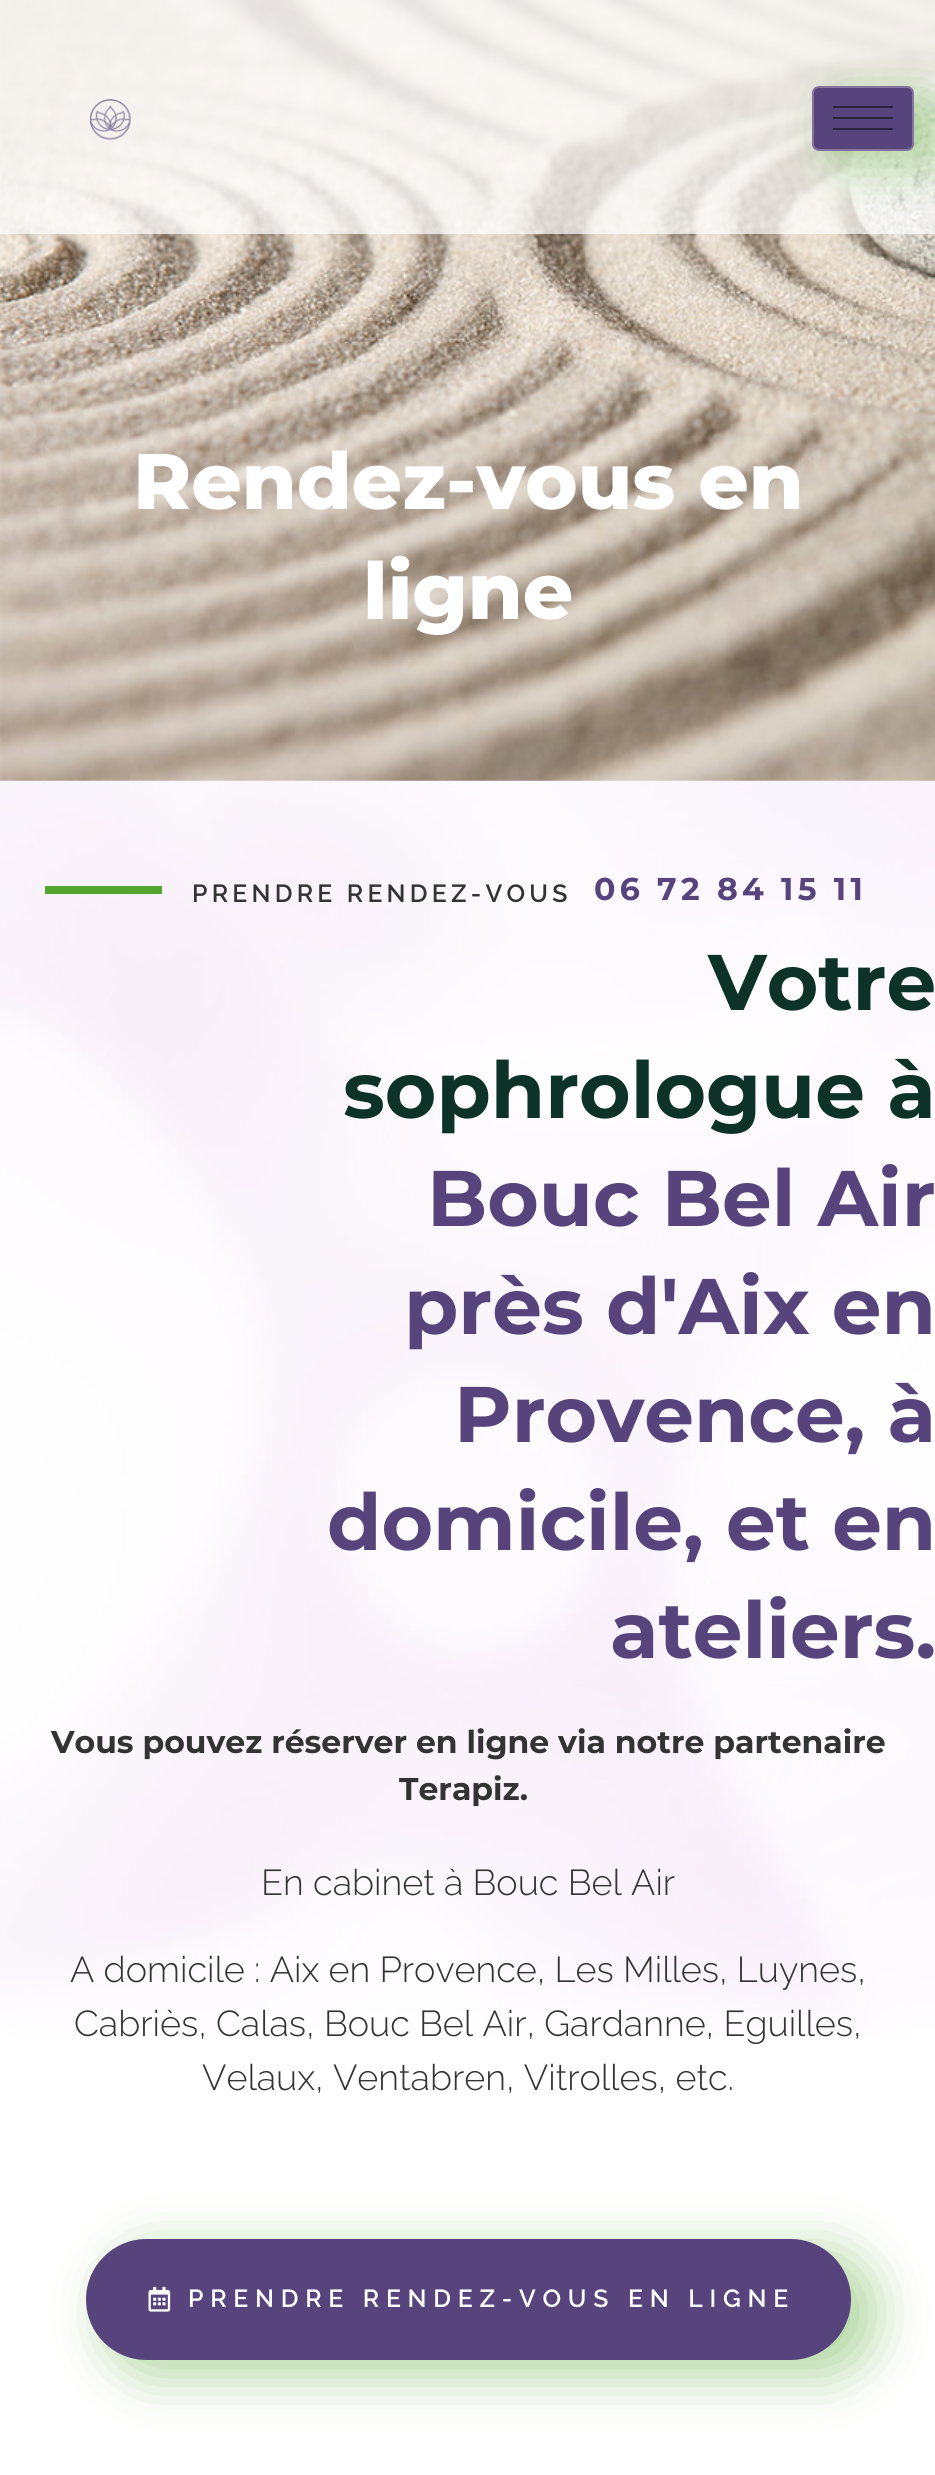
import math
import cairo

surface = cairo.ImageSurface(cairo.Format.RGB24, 935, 2475)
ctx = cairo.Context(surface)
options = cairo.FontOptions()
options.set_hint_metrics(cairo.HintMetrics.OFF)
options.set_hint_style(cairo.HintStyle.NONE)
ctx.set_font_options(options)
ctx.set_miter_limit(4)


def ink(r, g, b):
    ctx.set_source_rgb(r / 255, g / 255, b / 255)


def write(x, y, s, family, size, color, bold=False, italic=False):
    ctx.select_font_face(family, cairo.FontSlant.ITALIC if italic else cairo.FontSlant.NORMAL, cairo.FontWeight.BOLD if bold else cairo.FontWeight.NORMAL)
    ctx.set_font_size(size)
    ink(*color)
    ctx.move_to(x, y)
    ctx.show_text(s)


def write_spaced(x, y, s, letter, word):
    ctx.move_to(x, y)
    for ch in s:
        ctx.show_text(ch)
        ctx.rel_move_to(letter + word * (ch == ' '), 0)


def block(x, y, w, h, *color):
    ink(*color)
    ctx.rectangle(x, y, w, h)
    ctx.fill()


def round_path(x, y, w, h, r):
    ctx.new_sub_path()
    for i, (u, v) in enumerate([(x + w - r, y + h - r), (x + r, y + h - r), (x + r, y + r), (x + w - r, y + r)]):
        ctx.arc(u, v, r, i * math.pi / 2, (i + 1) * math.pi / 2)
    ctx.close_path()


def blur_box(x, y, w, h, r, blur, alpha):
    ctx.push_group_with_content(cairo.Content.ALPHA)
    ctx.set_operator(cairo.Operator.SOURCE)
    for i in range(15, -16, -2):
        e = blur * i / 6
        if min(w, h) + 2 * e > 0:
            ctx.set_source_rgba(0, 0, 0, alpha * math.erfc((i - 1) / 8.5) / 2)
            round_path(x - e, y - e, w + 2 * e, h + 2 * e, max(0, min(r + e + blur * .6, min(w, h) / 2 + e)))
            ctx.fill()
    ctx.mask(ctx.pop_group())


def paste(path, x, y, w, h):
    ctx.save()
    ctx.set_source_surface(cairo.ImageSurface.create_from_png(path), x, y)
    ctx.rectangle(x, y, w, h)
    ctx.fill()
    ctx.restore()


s1 = dict(family="Montserrat ExtraBold", size=78.75, color=(255, 255, 255))
s2 = dict(family="Montserrat", size=78.75, color=(13, 51, 41), bold=True)
s3 = dict(family="Montserrat", size=78.75, color=(87, 68, 124), bold=True)
s4 = dict(family="Montserrat", size=31.5, color=(51, 51, 51), bold=True)
s5 = dict(family="Raleway Light", size=36, color=(51, 51, 51))

ink(255, 255, 255)
ctx.paint()
paste("pic1.png", 0, 780, 935, 1255)
paste("pic3.png", 0, 0, 935, 781)
ctx.set_source_rgba(1, 1, 1, 0.7)
ctx.rectangle(0, 0, 935, 234)
ctx.fill()
paste("pic2.png", 90, 99, 41, 41)
ink(85, 166, 48)
blur_box(835, 99, 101, 65, 7, 27, 0.47)
ink(87, 68, 124)
round_path(813, 87, 100, 63, 6)
ctx.fill_preserve()
ink(131, 117, 158)
ctx.stroke()
block(833, 106, 60, 2, 44, 34, 62)
block(833, 117, 60, 2, 44, 34, 62)
block(833, 128, 60, 2, 44, 34, 62)
write(133, 509, "Rendez-vous en", **s1)
write(363, 619, "ligne", **s1)
block(45, 886, 117, 8, 85, 166, 48)
ctx.select_font_face("Raleway SemiBold")
ctx.set_font_size(24.75)
ink(51, 51, 51)
write_spaced(192, 902, "PRENDRE RENDEZ-VOUS", 4.25, 0)
ctx.select_font_face("Montserrat", cairo.FontSlant.NORMAL, cairo.FontWeight.BOLD)
ctx.set_font_size(31.5)
ink(87, 68, 124)
write_spaced(594, 900, "06 72 84 15 11", 4.25, 0)
write(708, 1010, "Votre", **s2)
write(343, 1118, "sophrologue à", **s2)
write(427, 1226, "Bouc Bel Air", **s3)
write(404, 1334, "près d'Aix en", **s3)
write(454, 1442, "Provence, à", **s3)
write(327, 1550, "domicile, et en", **s3)
write(610, 1658, "ateliers.", **s3)
write(51, 1753, "Vous pouvez réserver en ligne via notre partenaire", **s4)
write(399, 1800, "Terapiz.", **s4)
write(261, 1895, "En cabinet à Bouc Bel Air", **s5)
write(70, 1982, "A domicile : Aix en Provence, Les Milles, Luynes,", **s5)
write(74, 2036, "Cabriès, Calas, Bouc Bel Air, Gardanne, Eguilles,", **s5)
write(202, 2090, "Velaux, Ventabren, Vitrolles, etc.", **s5)
ink(85, 166, 48)
blur_box(108, 2252, 765, 122, 61, 27, 0.47)
ink(87, 68, 124)
round_path(86, 2239, 765, 121, 60.5)
ctx.fill()
paste("pic4.png", 148, 2286, 23, 26)
ctx.select_font_face("Raleway SemiBold")
ctx.set_font_size(24.75)
ink(255, 255, 255)
write_spaced(188, 2307, "PRENDRE RENDEZ-VOUS EN LIGNE", 6.75, 0)
surface.write_to_png("screenshot.png")
